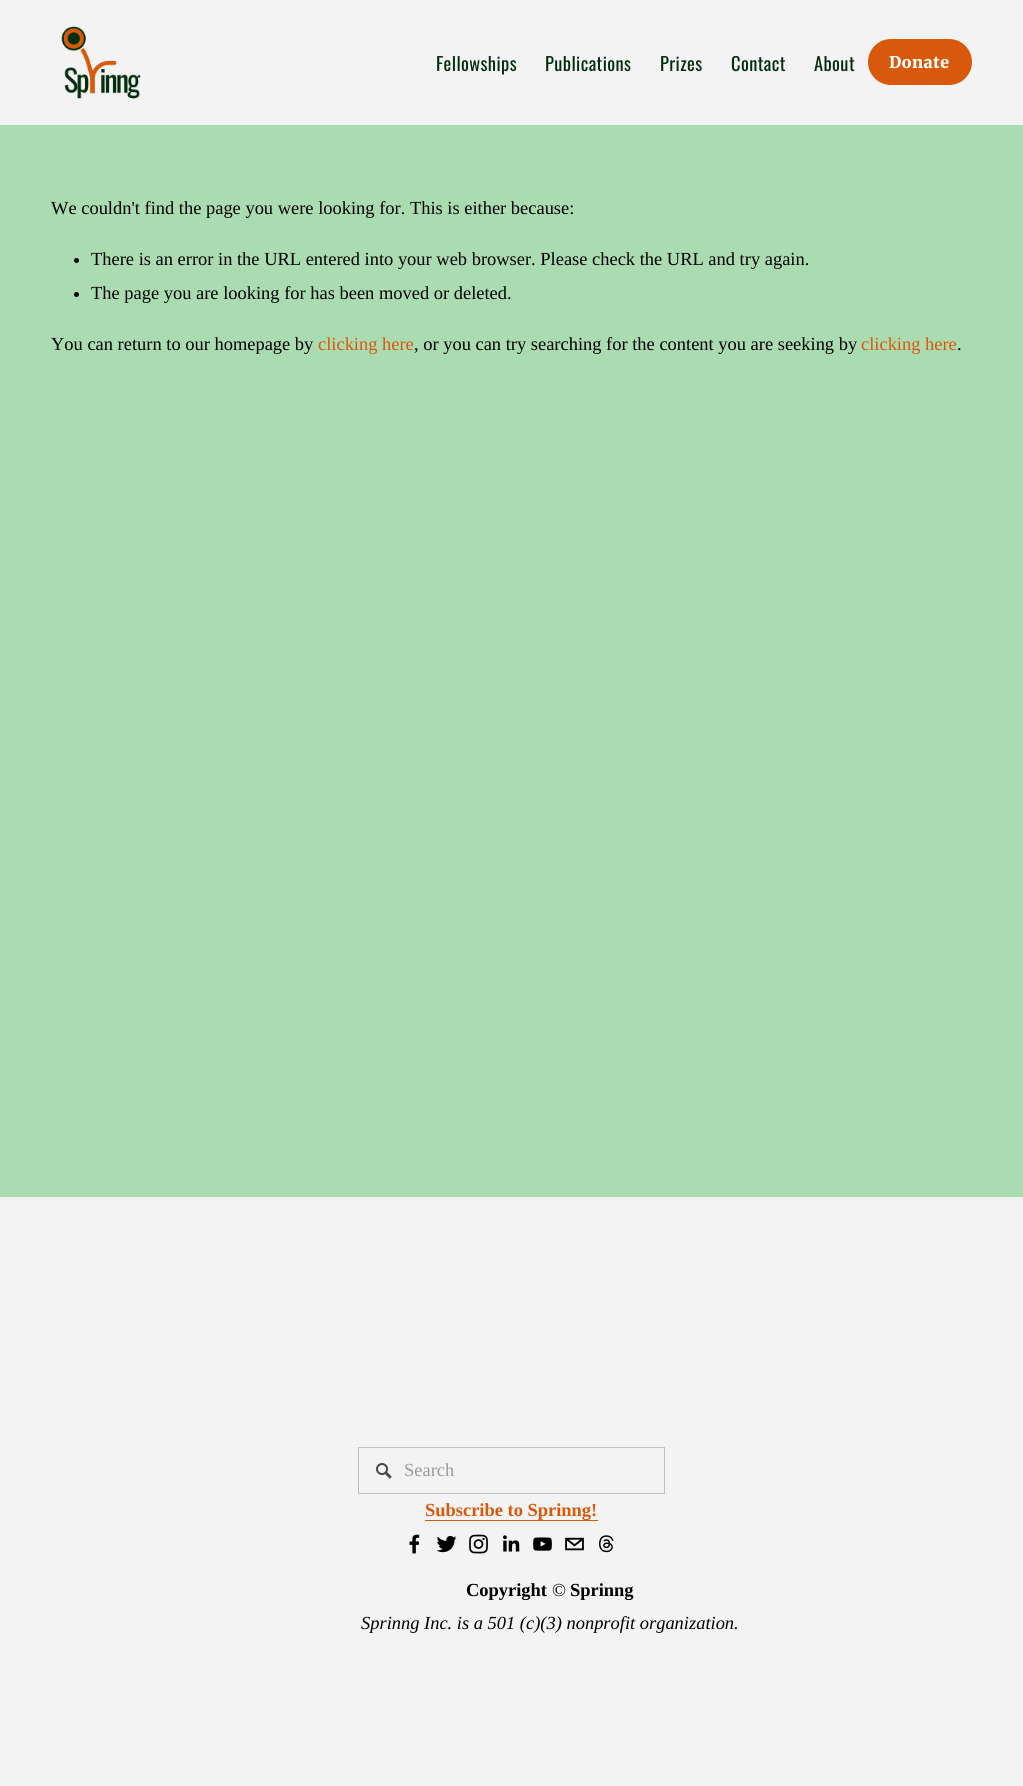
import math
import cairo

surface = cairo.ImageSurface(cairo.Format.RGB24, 1023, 1786)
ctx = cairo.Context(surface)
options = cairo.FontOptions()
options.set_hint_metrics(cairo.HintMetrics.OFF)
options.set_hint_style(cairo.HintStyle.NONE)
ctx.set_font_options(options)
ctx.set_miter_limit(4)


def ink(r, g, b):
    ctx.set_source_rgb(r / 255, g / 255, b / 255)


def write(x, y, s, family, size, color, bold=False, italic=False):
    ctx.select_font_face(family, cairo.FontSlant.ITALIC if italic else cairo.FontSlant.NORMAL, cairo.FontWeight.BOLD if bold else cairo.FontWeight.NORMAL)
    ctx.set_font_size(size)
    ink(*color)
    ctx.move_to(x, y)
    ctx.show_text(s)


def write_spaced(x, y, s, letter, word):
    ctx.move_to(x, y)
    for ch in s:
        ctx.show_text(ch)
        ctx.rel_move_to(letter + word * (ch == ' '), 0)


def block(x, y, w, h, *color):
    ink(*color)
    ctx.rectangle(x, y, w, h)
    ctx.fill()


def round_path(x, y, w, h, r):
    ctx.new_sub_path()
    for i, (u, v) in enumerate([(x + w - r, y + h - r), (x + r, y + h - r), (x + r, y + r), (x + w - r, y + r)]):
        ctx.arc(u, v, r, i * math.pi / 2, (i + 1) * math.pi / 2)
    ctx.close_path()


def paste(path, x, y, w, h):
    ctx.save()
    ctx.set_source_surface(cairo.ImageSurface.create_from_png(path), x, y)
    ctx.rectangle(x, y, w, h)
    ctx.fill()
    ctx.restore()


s1 = dict(family="Liberation Serif", size=18.45, color=(0, 0, 0))
s2 = dict(family="Liberation Serif", size=18.45, color=(216, 89, 11))
s3 = dict(family="Liberation Serif", size=18.45, color=(155, 155, 155))
s4 = dict(family="Liberation Serif", size=18.45, color=(216, 89, 11), bold=True)
s5 = dict(family="Liberation Serif", size=18.45, color=(0, 0, 0), bold=True)
s6 = dict(family="Liberation Serif", size=18.45, color=(0, 0, 0), italic=True)

ink(171, 219, 176)
ctx.paint()
block(0, 0, 1023, 125, 243, 243, 243)
paste("pic1.png", 61, 26, 80, 73)
ctx.select_font_face("Oswald")
ctx.set_font_size(18.45)
ink(2, 46, 13)
write_spaced(436, 71, "Fellowships", 0.4, 0)
write_spaced(545, 71, "Publications", 0.4, 0)
write_spaced(660, 71, "Prizes", 0.4, 0)
write_spaced(731, 71, "Contact", 0.4, 0)
write_spaced(814, 71, "About", 0.4, 0)
ink(216, 89, 11)
round_path(868, 39, 104, 46, 23)
ctx.fill()
ctx.select_font_face("Merriweather Light")
ctx.set_font_size(16)
ink(255, 255, 255)
write_spaced(889, 68, "Donate", 0.5, 0)
write(51, 214, "We couldn't find the page you were looking for. This is either because:", **s1)
ctx.new_path()
ctx.arc(76.5, 260.5, 2.5, 0, 2 * math.pi)
ctx.fill()
write(91, 265, "There is an error in the URL entered into your web browser. Please check the URL and try again.", **s1)
ctx.new_path()
ctx.arc(76.5, 294.5, 2.5, 0, 2 * math.pi)
ctx.fill()
write(91, 299, "The page you are looking for has been moved or deleted.", **s1)
write(51, 350, "You can return to our homepage by", **s1)
write(318, 350, "clicking here", **s2)
write(414, 350, ", or you can try searching for the content you are seeking by", **s1)
write(861, 350, "clicking here", **s2)
write(957, 350, ".", **s1)
block(0, 1197, 1023, 589, 243, 243, 243)
paste("pic2.png", 376, 1463, 16, 16)
ctx.rectangle(358.5, 1447.5, 306, 46)
ink(192, 192, 192)
ctx.set_line_width(1)
ctx.stroke()
write(404, 1476, "Search", **s3)
block(425, 1520, 173, 1, 216, 89, 11)
write(425, 1516, "Subscribe to Sprinng!", **s4)
paste("pic3.png", 409, 1534, 11, 20)
paste("pic4.png", 437, 1535, 20, 18)
paste("pic5.png", 469, 1534, 19, 20)
paste("pic6.png", 503, 1535, 17, 17)
paste("pic7.png", 533, 1537, 19, 14)
paste("pic8.png", 565, 1537, 19, 14)
paste("pic9.png", 599, 1535, 15, 18)
write(466, 1596, "Copyright", **s5)
write(552, 1596, "©", **s1)
write(570, 1596, "Sprinng", **s5)
write(361, 1629, "Sprinng Inc. is a 501 (c)(3) nonprofit organization.", **s6)
surface.write_to_png("screenshot.png")
